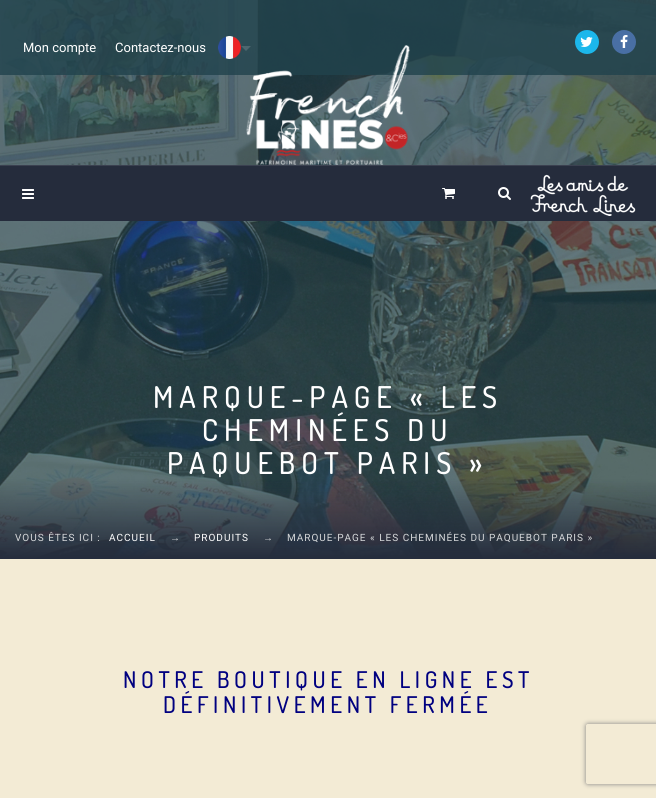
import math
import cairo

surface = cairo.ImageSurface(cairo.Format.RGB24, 656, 798)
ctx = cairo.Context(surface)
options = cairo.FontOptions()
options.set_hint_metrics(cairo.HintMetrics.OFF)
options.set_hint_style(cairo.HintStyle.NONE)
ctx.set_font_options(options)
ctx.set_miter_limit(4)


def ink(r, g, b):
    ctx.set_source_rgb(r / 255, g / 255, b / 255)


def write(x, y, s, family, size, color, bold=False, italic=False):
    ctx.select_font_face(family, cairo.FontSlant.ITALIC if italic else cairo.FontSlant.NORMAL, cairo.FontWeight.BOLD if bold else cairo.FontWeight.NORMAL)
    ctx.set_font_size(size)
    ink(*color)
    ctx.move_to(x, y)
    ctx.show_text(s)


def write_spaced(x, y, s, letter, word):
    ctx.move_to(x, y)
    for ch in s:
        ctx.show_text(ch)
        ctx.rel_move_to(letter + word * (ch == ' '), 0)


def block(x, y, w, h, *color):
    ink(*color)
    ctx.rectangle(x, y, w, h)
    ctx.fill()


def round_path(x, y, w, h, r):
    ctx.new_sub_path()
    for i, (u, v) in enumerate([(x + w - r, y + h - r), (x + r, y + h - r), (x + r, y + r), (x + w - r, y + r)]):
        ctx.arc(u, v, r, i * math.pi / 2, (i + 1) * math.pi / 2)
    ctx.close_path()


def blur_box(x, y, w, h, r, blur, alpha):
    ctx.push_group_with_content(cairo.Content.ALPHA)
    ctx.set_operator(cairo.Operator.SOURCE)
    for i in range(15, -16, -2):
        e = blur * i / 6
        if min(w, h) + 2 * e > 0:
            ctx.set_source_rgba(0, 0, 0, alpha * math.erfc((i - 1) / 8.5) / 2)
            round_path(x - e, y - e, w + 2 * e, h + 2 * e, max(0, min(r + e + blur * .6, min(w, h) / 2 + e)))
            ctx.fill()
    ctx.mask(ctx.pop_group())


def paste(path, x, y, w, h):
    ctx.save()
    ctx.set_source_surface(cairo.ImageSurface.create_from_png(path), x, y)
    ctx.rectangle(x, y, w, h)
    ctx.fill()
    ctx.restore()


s1 = dict(family="Roboto", size=13, color=(255, 255, 255))

ink(243, 235, 213)
ctx.paint()
paste("pic9.png", 0, 0, 656, 559)
ctx.set_source_rgba(0.145, 0.173, 0.235, 0.1)
ctx.rectangle(0, 0, 656, 165)
ctx.fill()
ctx.set_source_rgba(0.129, 0.263, 0.302, 0.8)
ctx.rectangle(0, 0, 656, 75)
ctx.fill()
write(23, 52, "Mon compte", **s1)
write(115, 52, "Contactez-nous", **s1)
paste("pic1.png", 218, 36, 23, 23)
paste("pic4.png", 246, 45, 164, 120)
ink(77, 103, 111)
ctx.new_path()
ctx.move_to(241, 46)
ctx.line_to(251, 46)
ctx.line_to(246, 51)
ctx.close_path()
ctx.fill()
ink(28, 183, 235)
ctx.arc(587, 42, 12, 0, 2 * math.pi)
ctx.fill()
paste("pic2.png", 580, 37, 13, 10)
ink(73, 111, 164)
ctx.arc(624, 42, 12, 0, 2 * math.pi)
ctx.fill()
paste("pic3.png", 620, 35, 8, 13)
block(0, 166, 656, 55, 37, 44, 60)
paste("pic5.png", 442, 188, 13, 11)
paste("pic6.png", 498, 187, 13, 13)
paste("pic7.png", 530, 174, 106, 42)
block(0, 165, 656, 1, 59, 65, 80)
paste("pic8.png", 22, 189, 12, 10)
ctx.select_font_face("Dosis Medium")
ctx.set_font_size(30)
ink(255, 255, 255)
write_spaced(153, 408, "MARQUE-PAGE « LES", 6, 0)
write_spaced(202, 441, "CHEMINÉES DU", 6, 0)
write_spaced(167, 474, "PAQUEBOT PARIS »", 6, 0)
ctx.select_font_face("Roboto")
ctx.set_font_size(10)
ink(214, 216, 218)
write_spaced(15, 541, "VOUS ÊTES ICI :", 1, 0)
ink(255, 255, 255)
write_spaced(109, 541, "ACCUEIL", 1, 0)
ctx.select_font_face("Liberation Serif")
ink(214, 216, 218)
write_spaced(170, 541, "→", 1, 0)
ctx.select_font_face("Roboto")
ink(255, 255, 255)
write_spaced(194, 541, "PRODUITS", 1, 0)
ctx.select_font_face("Liberation Serif")
ink(214, 216, 218)
write_spaced(263, 541, "→", 1, 0)
ctx.select_font_face("Roboto")
write_spaced(287, 541, "MARQUE-PAGE « LES CHEMINÉES DU PAQUEBOT PARIS »", 1, 0)
ctx.select_font_face("Dosis Medium")
ctx.set_font_size(23)
ink(0, 0, 128)
write_spaced(123, 688, "NOTRE BOUTIQUE EN LIGNE EST", 4.6, 0)
write_spaced(163, 713, "DÉFINITIVEMENT FERMÉE", 4.6, 0)
ctx.save()
ctx.set_fill_rule(cairo.FillRule.EVEN_ODD)
ctx.new_path()
ctx.move_to(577, 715)
ctx.line_to(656, 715)
ctx.line_to(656, 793)
ctx.line_to(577, 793)
ctx.close_path()
ctx.move_to(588, 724)
ctx.line_to(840, 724)
ctx.curve_to(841, 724, 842, 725, 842, 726)
ctx.line_to(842, 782)
ctx.curve_to(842, 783, 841, 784, 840, 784)
ctx.line_to(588, 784)
ctx.curve_to(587, 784, 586, 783, 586, 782)
ctx.line_to(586, 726)
ctx.curve_to(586, 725, 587, 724, 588, 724)
ctx.close_path()
ctx.clip()
ink(128, 128, 128)
blur_box(586, 724, 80, 60, 2, 2.5, 1)
ctx.restore()
surface.write_to_png("screenshot.png")
